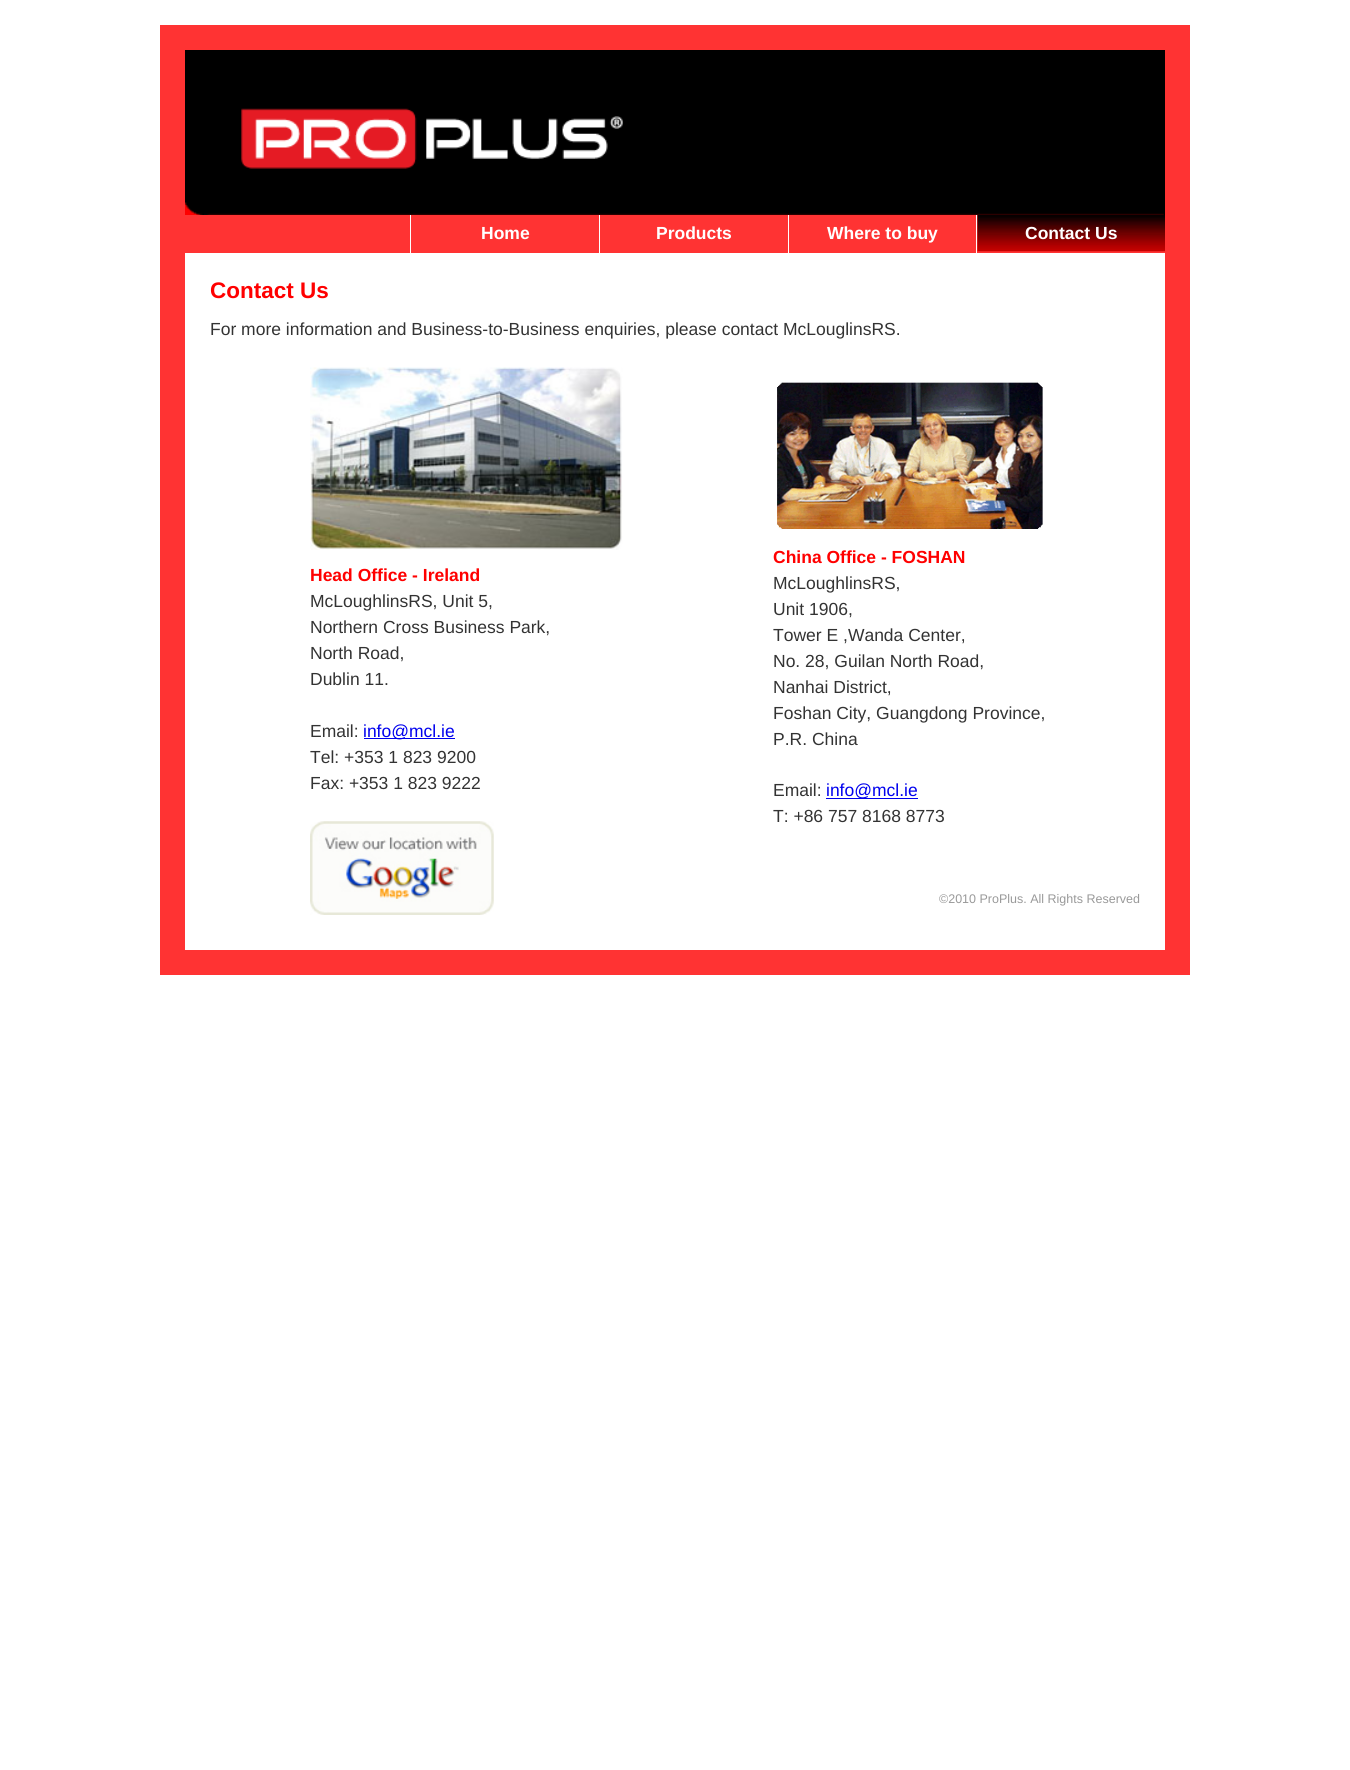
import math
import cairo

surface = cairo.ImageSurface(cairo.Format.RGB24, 1350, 1770)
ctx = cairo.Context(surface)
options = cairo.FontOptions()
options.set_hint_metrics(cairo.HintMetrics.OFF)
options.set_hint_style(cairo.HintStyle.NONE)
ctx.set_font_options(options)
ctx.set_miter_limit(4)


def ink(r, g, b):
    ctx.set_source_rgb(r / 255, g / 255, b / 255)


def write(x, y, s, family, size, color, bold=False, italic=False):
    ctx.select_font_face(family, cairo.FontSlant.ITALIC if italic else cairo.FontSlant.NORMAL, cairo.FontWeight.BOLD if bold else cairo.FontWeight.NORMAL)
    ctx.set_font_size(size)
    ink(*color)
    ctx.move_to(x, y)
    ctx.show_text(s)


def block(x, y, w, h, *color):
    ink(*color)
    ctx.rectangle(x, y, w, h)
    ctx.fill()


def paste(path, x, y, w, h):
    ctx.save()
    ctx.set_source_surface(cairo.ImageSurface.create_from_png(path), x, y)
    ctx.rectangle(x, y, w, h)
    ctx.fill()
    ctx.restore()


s1 = dict(family="Liberation Sans", size=17.5, color=(255, 255, 255), bold=True)
s2 = dict(family="Liberation Sans", size=22.5, color=(255, 0, 0), bold=True)
s3 = dict(family="Liberation Sans", size=17.5, color=(51, 51, 51))
s4 = dict(family="Liberation Sans", size=17.5, color=(255, 0, 0), bold=True)
s5 = dict(family="Liberation Sans", size=17.5, color=(0, 0, 238))
s6 = dict(family="Liberation Sans", size=12.5, color=(153, 153, 153))

ink(255, 255, 255)
ctx.paint()
ctx.rectangle(172.5, 37.5, 1005, 925)
ink(255, 51, 51)
ctx.set_line_width(25)
ctx.stroke()
block(185, 50, 980, 165, 0, 0, 0)
paste("pic1.png", 185, 108, 979, 107)
block(185, 215, 980, 38, 255, 51, 51)
block(410, 215, 1, 38, 255, 255, 255)
write(481, 239, "Home", **s1)
block(599, 215, 1, 38, 255, 255, 255)
write(656, 239, "Products", **s1)
block(788, 215, 1, 38, 255, 255, 255)
write(827, 239, "Where to buy", **s1)
block(976, 215, 1, 38, 255, 255, 255)
paste("pic2.png", 977, 215, 188, 37)
write(1025, 239, "Contact Us", **s1)
write(210, 298, "Contact Us", **s2)
write(210, 335, "For more information and Business-to-Business enquiries, please contact McLouglinsRS.", **s3)
paste("pic3.png", 310, 367, 313, 183)
write(310, 581, "Head Office - Ireland", **s4)
write(310, 607, "McLoughlinsRS, Unit 5,", **s3)
write(310, 633, "Northern Cross Business Park,", **s3)
write(310, 659, "North Road,", **s3)
write(310, 685, "Dublin 11.", **s3)
write(310, 737, "Email:", **s3)
block(364, 738, 91, 1, 0, 0, 238)
write(363, 737, "info@mcl.ie", **s5)
write(310, 763, "Tel: +353 1 823 9200", **s3)
write(310, 789, "Fax: +353 1 823 9222", **s3)
paste("pic4.png", 310, 821, 184, 94)
paste("pic5.png", 777, 380, 266, 150)
write(773, 563, "China Office - FOSHAN", **s4)
write(773, 589, "McLoughlinsRS,", **s3)
write(773, 615, "Unit 1906,", **s3)
write(773, 641, "Tower E ,Wanda Center,", **s3)
write(773, 667, "No. 28, Guilan North Road,", **s3)
write(773, 693, "Nanhai District,", **s3)
write(773, 719, "Foshan City, Guangdong Province,", **s3)
write(773, 745, "P.R. China", **s3)
write(773, 796, "Email:", **s3)
block(826, 798, 92, 1, 0, 0, 238)
write(826, 796, "info@mcl.ie", **s5)
write(773, 822, "T: +86 757 8168 8773", **s3)
write(939, 903, "©2010 ProPlus. All Rights Reserved", **s6)
surface.write_to_png("screenshot.png")
